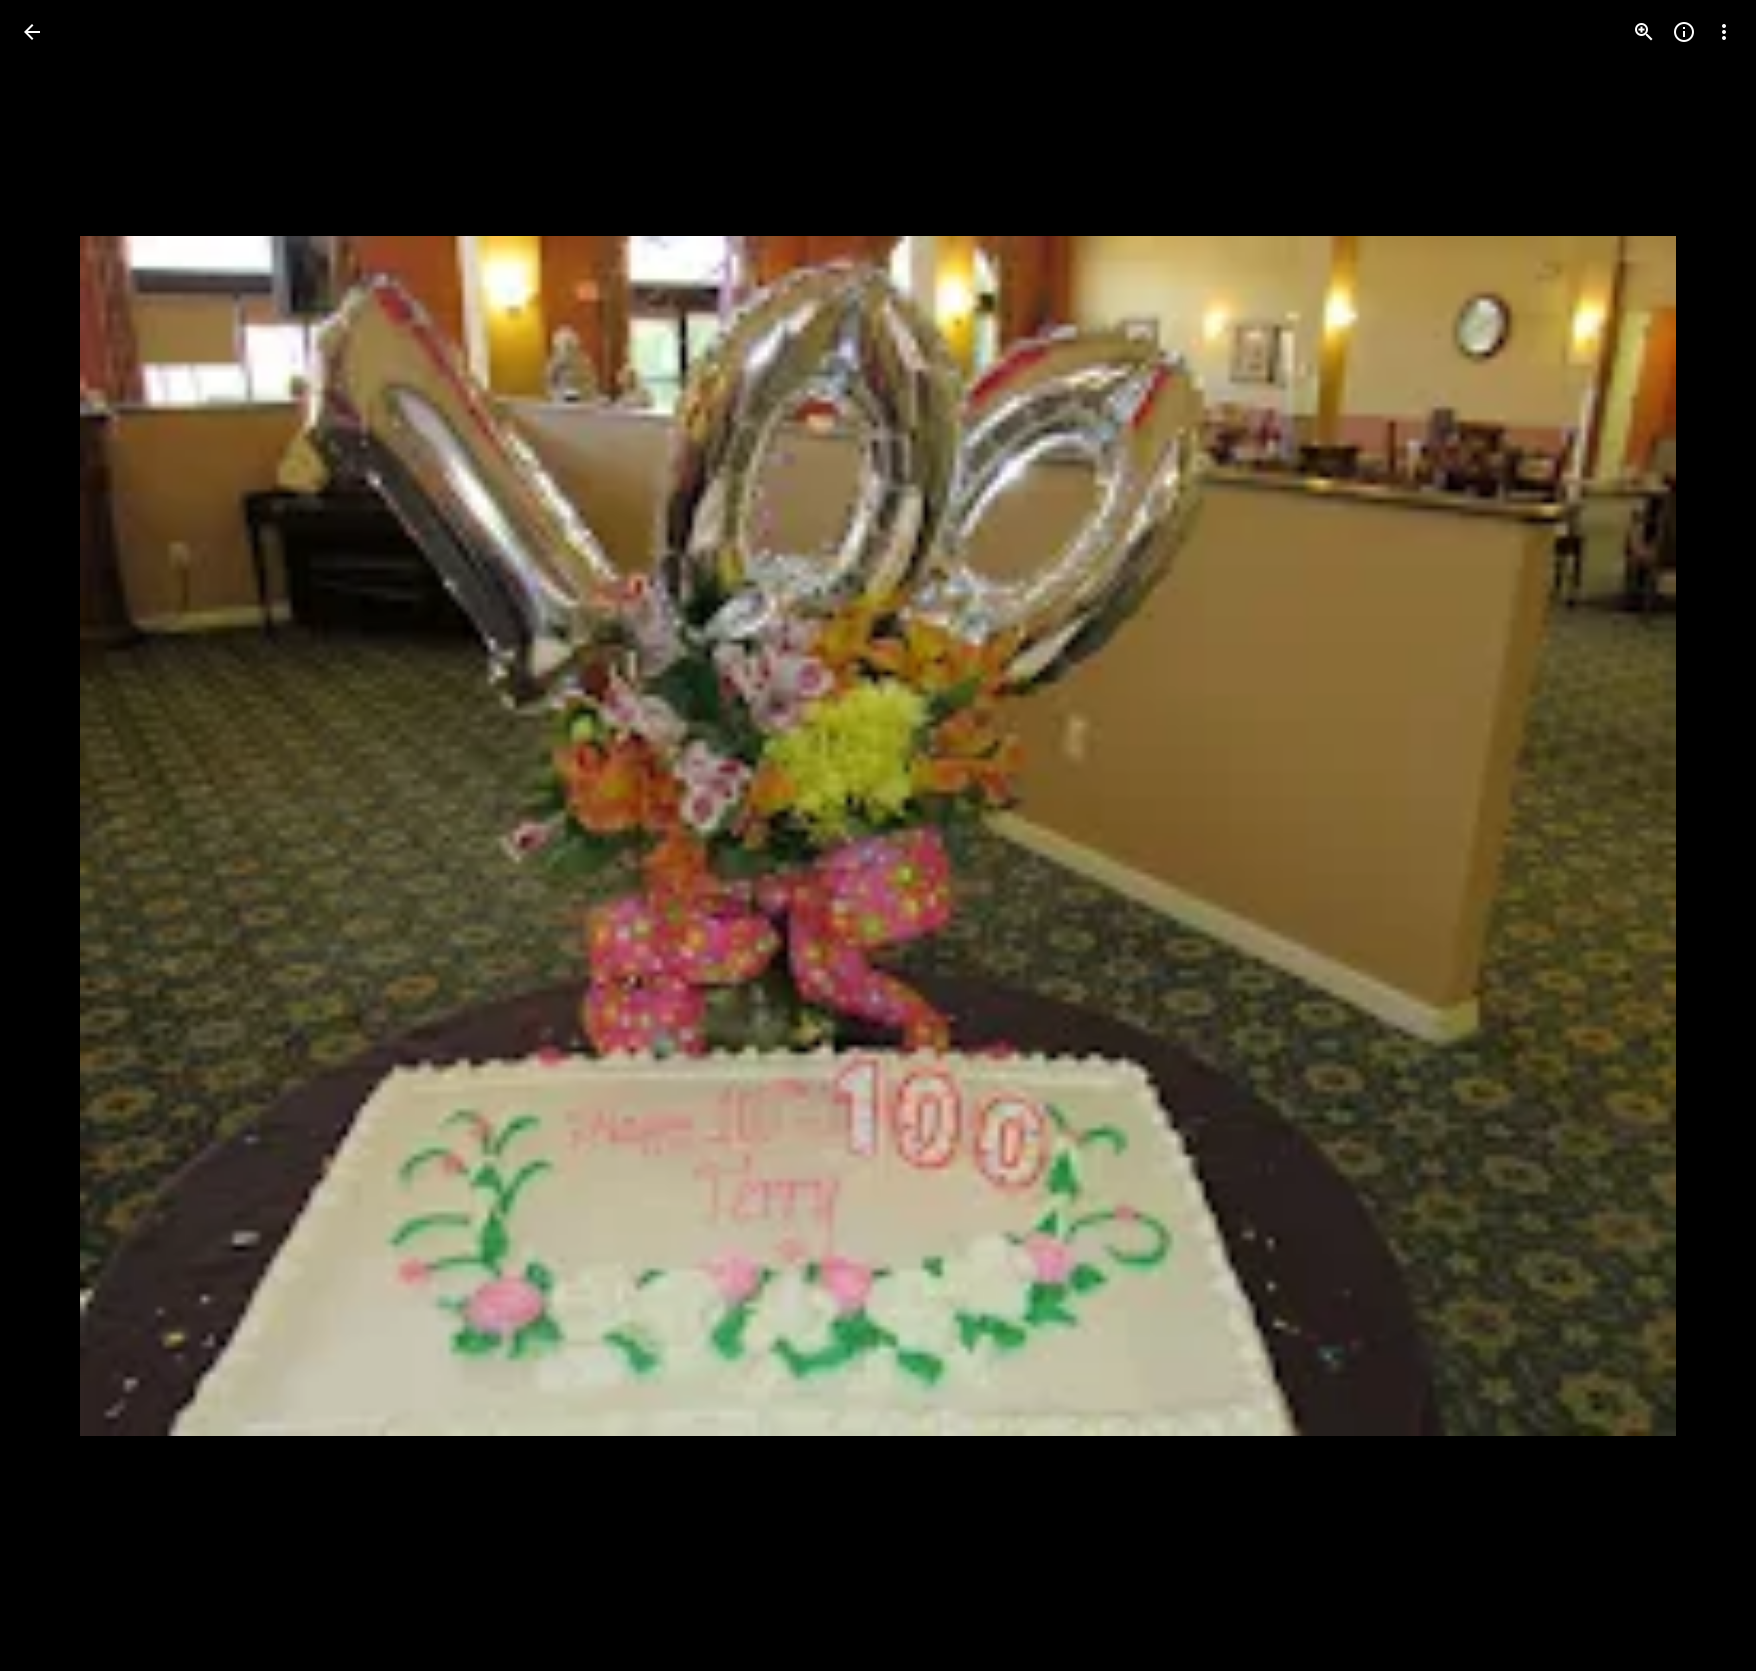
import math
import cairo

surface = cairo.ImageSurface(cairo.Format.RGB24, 1756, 1671)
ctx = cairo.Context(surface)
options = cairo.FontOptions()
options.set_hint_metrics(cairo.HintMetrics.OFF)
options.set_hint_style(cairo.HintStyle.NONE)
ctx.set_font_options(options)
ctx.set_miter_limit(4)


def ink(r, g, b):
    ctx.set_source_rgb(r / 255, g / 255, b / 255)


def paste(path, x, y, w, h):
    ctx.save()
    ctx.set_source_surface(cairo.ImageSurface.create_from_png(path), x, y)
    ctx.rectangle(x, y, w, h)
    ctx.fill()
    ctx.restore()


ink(0, 0, 0)
ctx.paint()
paste("pic1.png", 24, 24, 16, 16)
paste("pic2.png", 1635, 23, 18, 18)
paste("pic3.png", 1674, 22, 20, 20)
paste("pic4.png", 1722, 24, 4, 16)
paste("pic5.png", 80, 236, 1596, 1200)
surface.write_to_png("screenshot.png")
